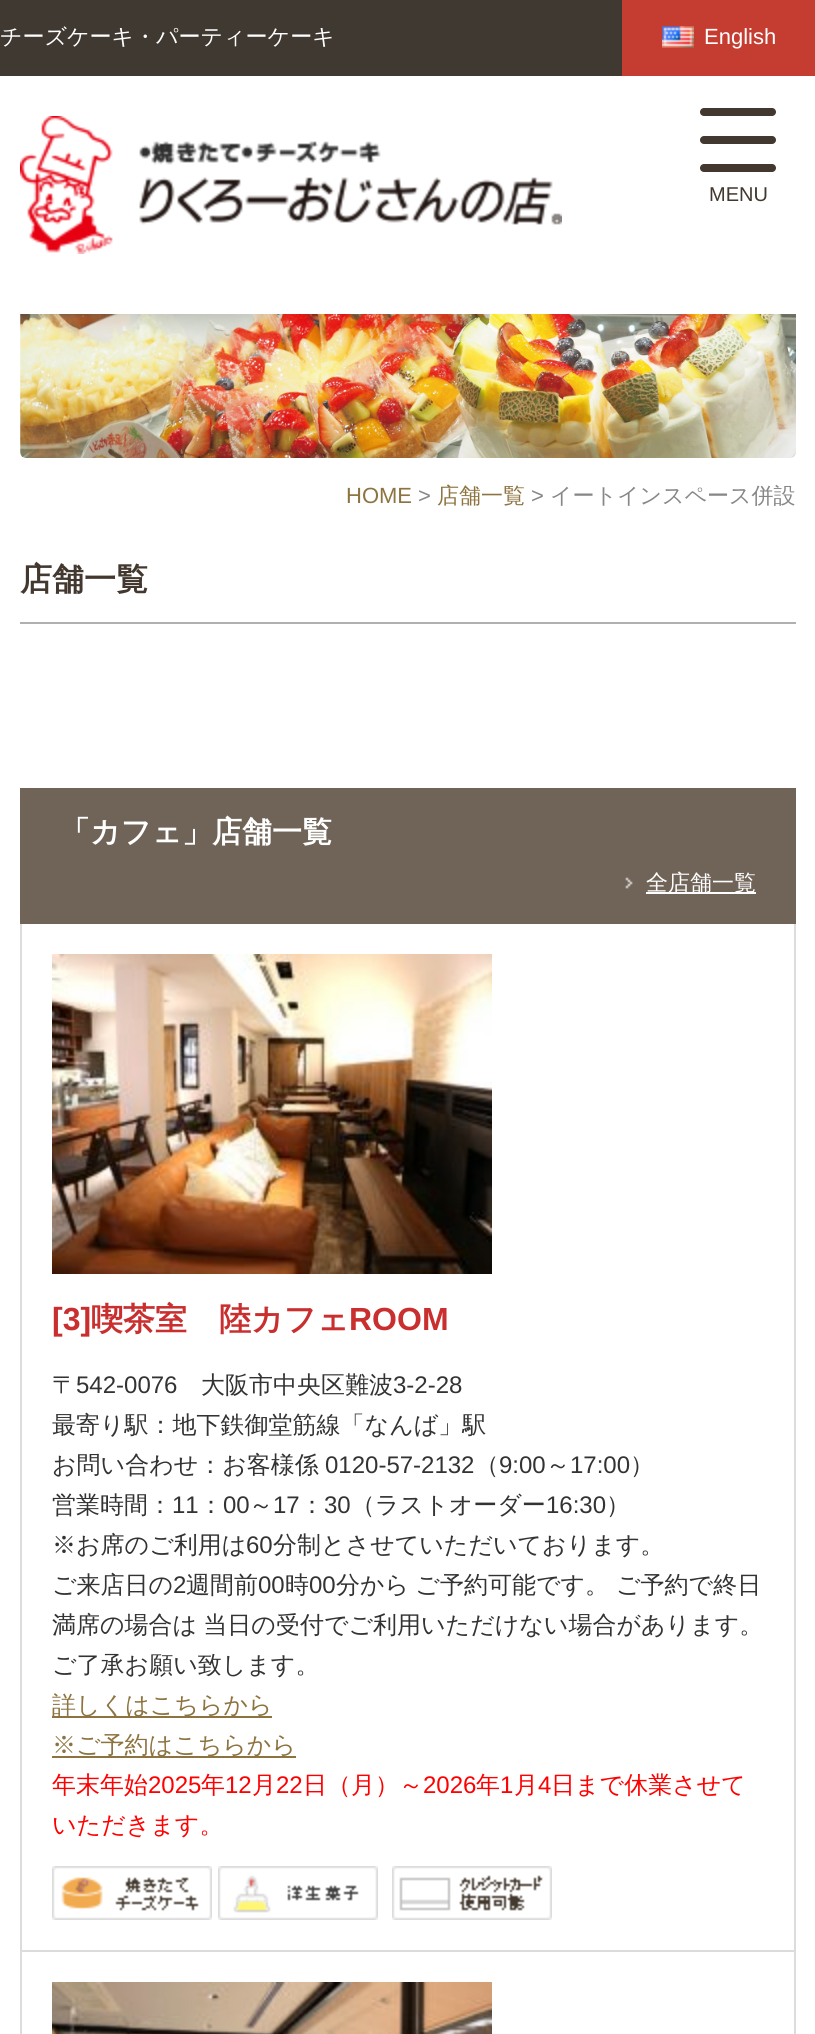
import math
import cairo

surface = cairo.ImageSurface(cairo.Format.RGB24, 815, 2034)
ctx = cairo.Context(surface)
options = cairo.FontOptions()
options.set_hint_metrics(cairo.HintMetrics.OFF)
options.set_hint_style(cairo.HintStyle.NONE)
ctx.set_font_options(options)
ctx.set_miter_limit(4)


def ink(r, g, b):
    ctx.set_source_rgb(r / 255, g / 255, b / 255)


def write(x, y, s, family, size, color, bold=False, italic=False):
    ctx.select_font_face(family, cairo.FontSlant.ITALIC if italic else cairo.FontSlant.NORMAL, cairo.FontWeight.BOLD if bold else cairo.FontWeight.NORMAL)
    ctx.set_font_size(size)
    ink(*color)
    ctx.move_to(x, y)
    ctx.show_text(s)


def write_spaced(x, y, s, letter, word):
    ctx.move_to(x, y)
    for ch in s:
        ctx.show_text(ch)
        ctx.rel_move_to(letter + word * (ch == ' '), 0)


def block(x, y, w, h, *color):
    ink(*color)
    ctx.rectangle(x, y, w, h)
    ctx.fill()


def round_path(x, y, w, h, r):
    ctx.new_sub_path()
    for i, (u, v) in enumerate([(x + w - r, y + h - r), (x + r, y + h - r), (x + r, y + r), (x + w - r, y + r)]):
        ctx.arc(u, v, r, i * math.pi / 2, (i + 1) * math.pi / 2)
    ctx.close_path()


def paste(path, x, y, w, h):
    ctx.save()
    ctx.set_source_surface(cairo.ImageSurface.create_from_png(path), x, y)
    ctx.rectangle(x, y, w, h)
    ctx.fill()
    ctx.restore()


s1 = dict(family="WenQuanYi Zen Hei Medium", size=22, color=(255, 255, 255))
s2 = dict(family="Liberation Sans", size=22, color=(255, 255, 255))
s3 = dict(family="Liberation Sans", size=20, color=(66, 56, 47))
s4 = dict(family="Liberation Sans", size=22, color=(141, 115, 63))
s5 = dict(family="Liberation Sans", size=22, color=(135, 135, 135))
s6 = dict(family="WenQuanYi Zen Hei Medium", size=22, color=(141, 115, 63))
s7 = dict(family="WenQuanYi Zen Hei Medium", size=22, color=(135, 135, 135))
s8 = dict(family="WenQuanYi Zen Hei", size=32, color=(66, 56, 47), bold=True)
s9 = dict(family="WenQuanYi Zen Hei", size=30, color=(255, 255, 255), bold=True)
s10 = dict(family="Liberation Sans", size=32, color=(201, 47, 47), bold=True)
s11 = dict(family="WenQuanYi Zen Hei", size=32, color=(201, 47, 47), bold=True)
s12 = dict(family="WenQuanYi Zen Hei Medium", size=24, color=(51, 51, 51))
s13 = dict(family="Liberation Sans", size=24, color=(51, 51, 51))
s14 = dict(family="WenQuanYi Zen Hei Medium", size=24, color=(141, 115, 63))
s15 = dict(family="WenQuanYi Zen Hei Medium", size=24, color=(255, 0, 0))
s16 = dict(family="Liberation Sans", size=24, color=(255, 0, 0))

ink(64, 57, 49)
ctx.paint()
write(0, 44, "チーズケーキ・パーティーケーキ", **s1)
block(622, 0, 193, 76, 197, 61, 49)
paste("pic1.png", 662, 26, 32, 22)
write(704, 44, "English", **s2)
block(0, 76, 815, 1958, 255, 255, 255)
paste("pic2.png", 20, 116, 542, 138)
ink(66, 56, 47)
round_path(700, 108, 76, 8, 4)
ctx.fill()
round_path(700, 136, 76, 8, 4)
ctx.fill()
round_path(700, 164, 76, 8, 4)
ctx.fill()
write(709, 201, "MENU", **s3)
paste("pic3.png", 20, 314, 776, 144)
write(346, 503, "HOME", **s4)
write(418, 503, ">", **s5)
write(437, 503, "店舗一覧", **s6)
write(531, 503, ">", **s5)
write(550, 503, "イートインスペース併設", **s7)
block(20, 622, 776, 2, 176, 176, 176)
write(20, 590, "店舗一覧", **s8)
block(20, 788, 776, 136, 112, 100, 89)
write(60, 842, "「カフェ」店舗一覧", **s9)
paste("pic4.png", 625, 877, 8, 12)
block(646, 892, 110, 2, 255, 255, 255)
write(646, 890, "全店舗一覧", **s1)
block(794, 924, 2, 1110, 220, 220, 220)
block(20, 1950, 776, 2, 220, 220, 220)
block(20, 924, 2, 1110, 220, 220, 220)
paste("pic5.png", 52, 954, 440, 320)
write(52, 1330, "[3]", **s10)
write(91, 1330, "喫茶室　陸カフェ", **s11)
write(349, 1330, "ROOM", **s10)
write(52, 1393, "〒", **s12)
write(76, 1393, "542-0076", **s13)
write(201, 1393, "大阪市中央区難波", **s12)
write(393, 1393, "3-2-28", **s13)
write(52, 1433, "最寄り駅：地下鉄御堂筋線「なんば」駅", **s12)
write(52, 1473, "お問い合わせ：お客様係", **s12)
write(325, 1473, "0120-57-2132", **s13)
write(475, 1473, "（", **s12)
write(499, 1473, "9:00", **s13)
write(546, 1473, "～", **s12)
write(570, 1473, "17:00", **s13)
write(630, 1473, "）", **s12)
write(52, 1513, "営業時間：", **s12)
write(172, 1513, "11", **s13)
write(199, 1513, "：", **s12)
write(223, 1513, "00", **s13)
write(249, 1513, "～", **s12)
write(273, 1513, "17", **s13)
write(300, 1513, "：", **s12)
write(324, 1513, "30", **s13)
write(351, 1513, "（ラストオーダー", **s12)
write(546, 1513, "16:30", **s13)
write(606, 1513, "）", **s12)
write(52, 1553, "※お席のご利用は", **s12)
write(246, 1553, "60", **s13)
write(273, 1553, "分制とさせていただいております。", **s12)
write(52, 1593, "ご来店日の", **s12)
write(173, 1593, "2", **s13)
write(186, 1593, "週間前", **s12)
write(258, 1593, "00", **s13)
write(285, 1593, "時", **s12)
write(309, 1593, "00", **s13)
ctx.select_font_face("WenQuanYi Zen Hei Medium")
write_spaced(336, 1593, "分から ご予約可能です。", 0, -1)
write(616, 1593, "ご予約で終日", **s12)
write_spaced(52, 1633, "満席の場合は 当日の受付でご利用いただけない場合があります。", 0, -1)
write(52, 1673, "ご了承お願い致します。", **s12)
block(52, 1716, 220, 2, 141, 115, 63)
write(52, 1713, "詳しくはこちらから", **s14)
block(52, 1756, 244, 2, 141, 115, 63)
write(52, 1753, "※ご予約はこちらから", **s14)
write(52, 1793, "年末年始", **s15)
write(148, 1793, "2025", **s16)
write(201, 1793, "年", **s15)
write(225, 1793, "12", **s16)
write(252, 1793, "月", **s15)
write(276, 1793, "22", **s16)
write(303, 1793, "日（月）～", **s15)
write(423, 1793, "2026", **s16)
write(476, 1793, "年", **s15)
write(500, 1793, "1", **s16)
write(514, 1793, "月", **s15)
write(538, 1793, "4", **s16)
write(551, 1793, "日まで休業させて", **s15)
write(52, 1833, "いただきます。", **s15)
paste("pic6.png", 52, 1866, 160, 54)
paste("pic7.png", 218, 1866, 160, 54)
paste("pic8.png", 392, 1866, 160, 54)
paste("pic9.png", 52, 1982, 440, 52)
surface.write_to_png("screenshot.png")
